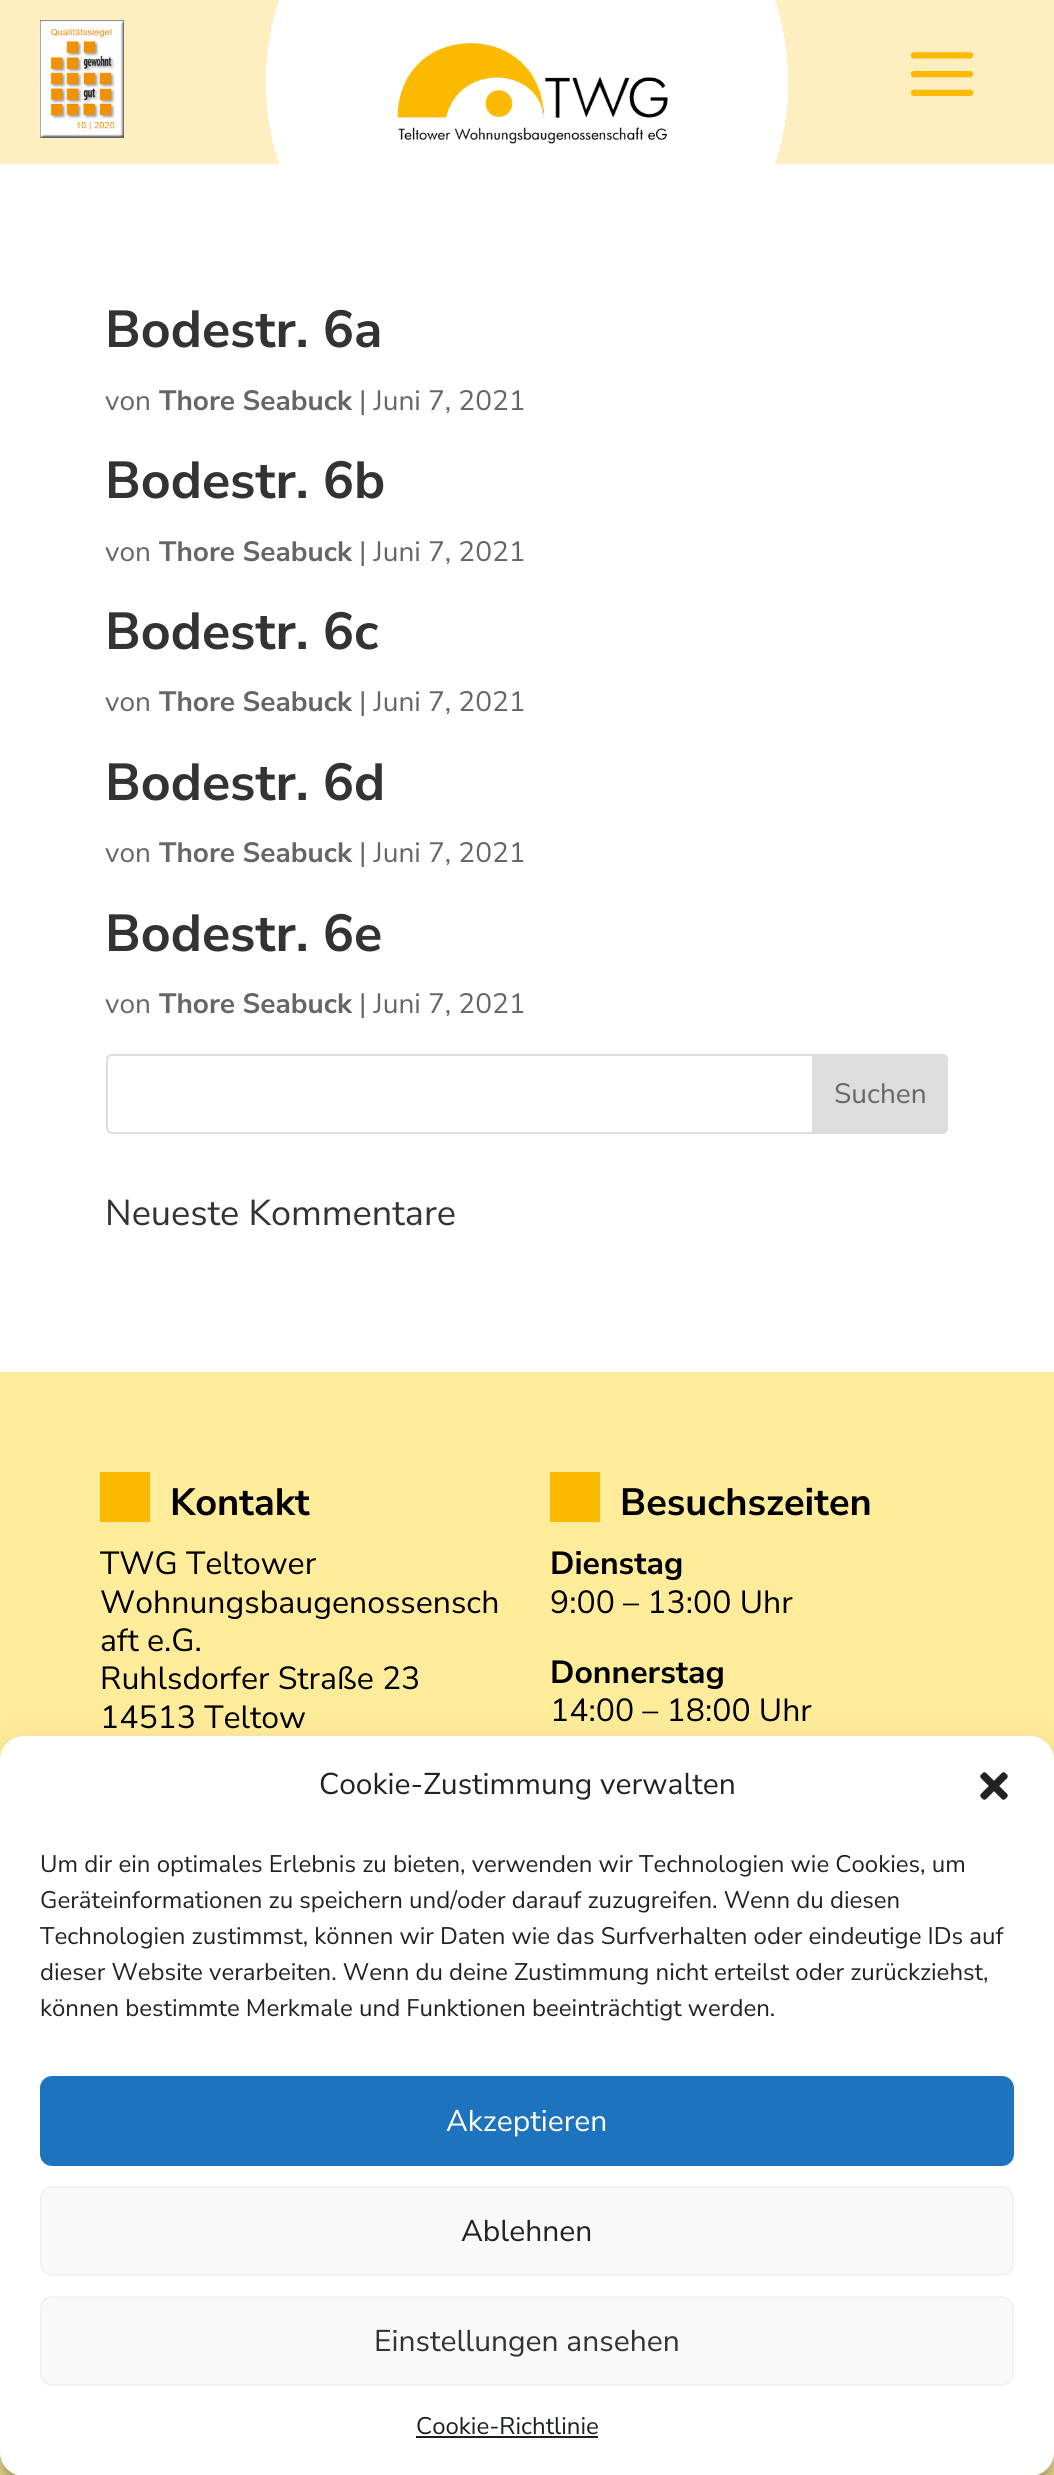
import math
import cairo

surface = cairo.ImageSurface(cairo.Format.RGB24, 1054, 2475)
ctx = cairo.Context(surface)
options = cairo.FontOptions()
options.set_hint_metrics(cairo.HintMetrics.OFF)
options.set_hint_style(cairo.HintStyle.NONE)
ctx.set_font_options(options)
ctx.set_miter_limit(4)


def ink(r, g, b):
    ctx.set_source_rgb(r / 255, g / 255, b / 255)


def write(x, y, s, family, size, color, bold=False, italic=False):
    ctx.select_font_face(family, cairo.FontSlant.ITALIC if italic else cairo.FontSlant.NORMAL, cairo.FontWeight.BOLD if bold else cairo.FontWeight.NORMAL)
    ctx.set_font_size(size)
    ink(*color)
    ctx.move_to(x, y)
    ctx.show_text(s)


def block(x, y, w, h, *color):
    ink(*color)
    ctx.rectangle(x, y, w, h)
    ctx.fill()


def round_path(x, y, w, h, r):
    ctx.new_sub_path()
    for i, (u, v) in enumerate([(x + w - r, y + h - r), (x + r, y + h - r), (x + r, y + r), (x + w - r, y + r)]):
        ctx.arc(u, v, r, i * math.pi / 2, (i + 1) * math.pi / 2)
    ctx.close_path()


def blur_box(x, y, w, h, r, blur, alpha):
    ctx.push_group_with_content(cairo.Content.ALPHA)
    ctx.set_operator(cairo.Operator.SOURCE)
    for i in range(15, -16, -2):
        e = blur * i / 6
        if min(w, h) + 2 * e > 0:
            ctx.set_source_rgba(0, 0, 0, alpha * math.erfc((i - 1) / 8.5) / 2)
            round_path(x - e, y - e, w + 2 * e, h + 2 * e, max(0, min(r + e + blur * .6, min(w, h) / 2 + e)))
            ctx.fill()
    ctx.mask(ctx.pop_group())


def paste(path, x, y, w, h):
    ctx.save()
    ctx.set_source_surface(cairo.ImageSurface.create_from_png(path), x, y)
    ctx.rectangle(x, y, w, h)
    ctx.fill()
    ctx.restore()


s1 = dict(family="Nunito Sans", size=52, color=(51, 51, 51), bold=True)
s2 = dict(family="Nunito Sans", size=28, color=(102, 102, 102))
s3 = dict(family="Nunito Sans", size=28, color=(102, 102, 102), bold=True)
s4 = dict(family="Nunito Sans", size=36, color=(51, 51, 51))
s5 = dict(family="Nunito Sans", size=38, color=(0, 0, 0), bold=True)
s6 = dict(family="Nunito Sans", size=32, color=(0, 0, 0))
s7 = dict(family="Nunito Sans", size=32, color=(0, 0, 0), bold=True)
s8 = dict(family="Nunito Sans", size=30, color=(34, 34, 34))
s9 = dict(family="Nunito Sans", size=24, color=(34, 34, 34))
s10 = dict(family="Nunito Sans", size=30, color=(255, 255, 255))
s11 = dict(family="Nunito Sans", size=30, color=(51, 51, 51))
s12 = dict(family="Nunito Sans", size=24, color=(25, 30, 35))

ink(255, 255, 255)
ctx.paint()
gradient = cairo.RadialGradient(527, 82, 0, 527, 82, 533)
gradient.add_color_stop_rgba(0.49, 1, 1, 1, 1)
gradient.add_color_stop_rgba(0.49, 0.996, 0.933, 0.753, 1)
ctx.set_source(gradient)
ctx.rectangle(0, 0, 1054, 164)
ctx.fill()
paste("pic1.png", 40, 20, 84, 118)
paste("pic2.png", 397, 43, 271, 101)
paste("pic3.png", 910, 52, 64, 44)
write(105, 347, "Bodestr. 6a", **s1)
write(105, 410, "von", **s2)
write(159, 410, "Thore Seabuck", **s3)
write(359, 410, "| Juni 7, 2021", **s2)
write(105, 498, "Bodestr. 6b", **s1)
write(105, 561, "von", **s2)
write(159, 561, "Thore Seabuck", **s3)
write(359, 561, "| Juni 7, 2021", **s2)
write(105, 649, "Bodestr. 6c", **s1)
write(105, 711, "von", **s2)
write(159, 711, "Thore Seabuck", **s3)
write(359, 711, "| Juni 7, 2021", **s2)
write(105, 800, "Bodestr. 6d", **s1)
write(105, 862, "von", **s2)
write(159, 862, "Thore Seabuck", **s3)
write(359, 862, "| Juni 7, 2021", **s2)
write(105, 951, "Bodestr. 6e", **s1)
write(105, 1013, "von", **s2)
write(159, 1013, "Thore Seabuck", **s3)
write(359, 1013, "| Juni 7, 2021", **s2)
round_path(107, 1055, 840, 78, 5)
ink(221, 221, 221)
ctx.stroke()
ctx.new_path()
ctx.move_to(813, 1055)
ctx.line_to(942, 1055)
ctx.curve_to(945, 1055, 947, 1057, 947, 1060)
ctx.line_to(947, 1128)
ctx.curve_to(947, 1131, 945, 1133, 942, 1133)
ctx.line_to(813, 1133)
ctx.close_path()
ctx.fill_preserve()
ctx.stroke()
write(834, 1103, "Suchen", **s2)
write(105, 1225, "Neueste Kommentare", **s4)
block(0, 1372, 1054, 1103, 255, 236, 154)
block(100, 1472, 50, 50, 251, 185, 0)
write(170, 1515, "Kontakt", **s5)
write(100, 1574, "TWG Teltower", **s6)
write(100, 1613, "Wohnungsbaugenossensch", **s6)
write(100, 1651, "aft e.G.", **s6)
write(100, 1689, "Ruhlsdorfer Straße 23", **s6)
write(100, 1728, "14513 Teltow", **s6)
block(550, 1472, 50, 50, 251, 185, 0)
write(620, 1515, "Besuchszeiten", **s5)
write(550, 1574, "Dienstag", **s7)
write(550, 1613, "9:00 – 13:00 Uhr", **s6)
write(550, 1683, "Donnerstag", **s7)
write(550, 1721, "14:00 – 18:00 Uhr", **s6)
ink(0, 0, 0)
blur_box(0, 1748, 1054, 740, 24, 6, 0.23)
blur_box(0, 1756, 1054, 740, 24, 20, 0.19)
ink(255, 255, 255)
round_path(0, 1736, 1054, 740, 24)
ctx.fill()
write(319, 1794, "Cookie-Zustimmung verwalten", **s8)
paste("pic4.png", 980, 1772, 28, 28)
write(40, 1872, "Um dir ein optimales Erlebnis zu bieten, verwenden wir Technologien wie Cookies, um", **s9)
write(40, 1908, "Geräteinformationen zu speichern und/oder darauf zuzugreifen. Wenn du diesen", **s9)
write(40, 1944, "Technologien zustimmst, können wir Daten wie das Surfverhalten oder eindeutige IDs auf", **s9)
write(40, 1980, "dieser Website verarbeiten. Wenn du deine Zustimmung nicht erteilst oder zurückziehst,", **s9)
write(40, 2016, "können bestimmte Merkmale und Funktionen beeinträchtigt werden.", **s9)
ink(30, 115, 190)
round_path(41, 2077, 972, 88, 11)
ctx.fill_preserve()
ctx.stroke()
write(446, 2131, "Akzeptieren", **s10)
ink(249, 249, 249)
round_path(41, 2187, 972, 88, 11)
ctx.fill_preserve()
ink(242, 242, 242)
ctx.stroke()
write(461, 2241, "Ablehnen", **s8)
ink(249, 249, 249)
round_path(41, 2297, 972, 88, 11)
ctx.fill_preserve()
ink(242, 242, 242)
ctx.stroke()
write(374, 2351, "Einstellungen ansehen", **s11)
write(416, 2434, "Cookie-Richtlinie", **s12)
block(416, 2436, 182, 2, 25, 30, 35)
surface.write_to_png("screenshot.png")
